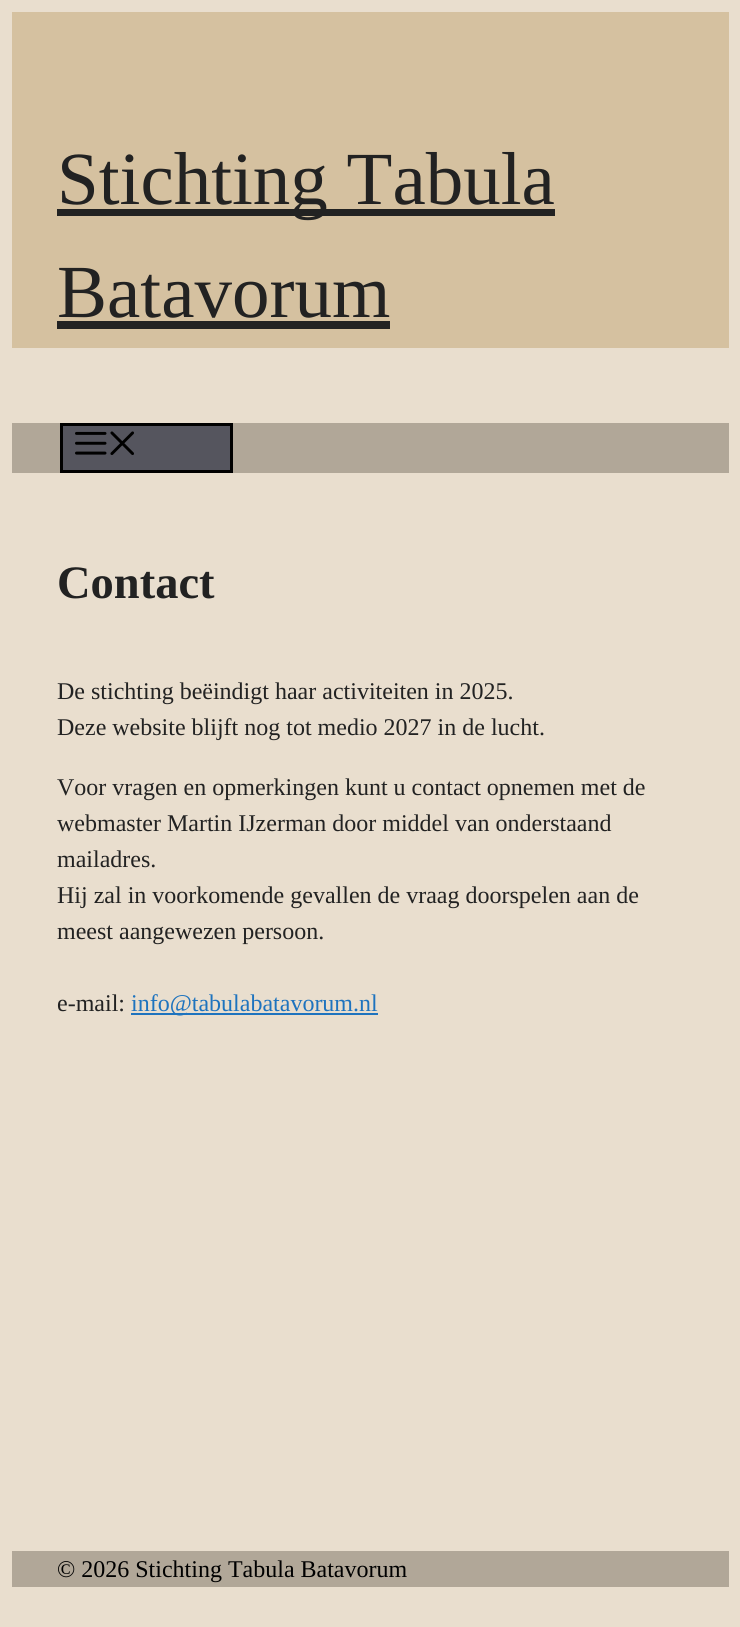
import math
import cairo

surface = cairo.ImageSurface(cairo.Format.RGB24, 740, 1627)
ctx = cairo.Context(surface)
options = cairo.FontOptions()
options.set_hint_metrics(cairo.HintMetrics.OFF)
options.set_hint_style(cairo.HintStyle.NONE)
ctx.set_font_options(options)
ctx.set_miter_limit(4)


def ink(r, g, b):
    ctx.set_source_rgb(r / 255, g / 255, b / 255)


def write(x, y, s, family, size, color, bold=False, italic=False):
    ctx.select_font_face(family, cairo.FontSlant.ITALIC if italic else cairo.FontSlant.NORMAL, cairo.FontWeight.BOLD if bold else cairo.FontWeight.NORMAL)
    ctx.set_font_size(size)
    ink(*color)
    ctx.move_to(x, y)
    ctx.show_text(s)


def block(x, y, w, h, *color):
    ink(*color)
    ctx.rectangle(x, y, w, h)
    ctx.fill()


def paste(path, x, y, w, h):
    ctx.save()
    ctx.set_source_surface(cairo.ImageSurface.create_from_png(path), x, y)
    ctx.rectangle(x, y, w, h)
    ctx.fill()
    ctx.restore()


s1 = dict(family="Liberation Serif", size=75, color=(34, 34, 34))
s2 = dict(family="Liberation Serif", size=46.5, color=(34, 34, 34), bold=True)
s3 = dict(family="Liberation Serif", size=24, color=(34, 34, 34))
s4 = dict(family="Liberation Serif", size=24, color=(30, 115, 190))
s5 = dict(family="Liberation Serif", size=24, color=(0, 0, 0))

ink(233, 222, 206)
ctx.paint()
block(12, 12, 717, 336, 213, 193, 160)
block(57, 209, 498, 7, 34, 34, 34)
write(57, 204, "Stichting Tabula", **s1)
write(57, 317, "Batavorum", **s1)
block(57, 321, 333, 8, 34, 34, 34)
block(12, 423, 717, 50, 177, 167, 152)
ink(85, 85, 94)
ctx.rectangle(61.5, 424.5, 170, 47)
ctx.fill_preserve()
ink(0, 0, 0)
ctx.set_line_width(3)
ctx.stroke()
paste("pic1.png", 75, 431, 32, 24)
paste("pic2.png", 110, 431, 24, 24)
write(57, 598, "Contact", **s2)
write(57, 699, "De stichting beëindigt haar activiteiten in 2025.", **s3)
write(57, 735, "Deze website blijft nog tot medio 2027 in de lucht.", **s3)
write(57, 795, "Voor vragen en opmerkingen kunt u contact opnemen met de", **s3)
write(57, 831, "webmaster Martin IJzerman door middel van onderstaand", **s3)
write(57, 867, "mailadres.", **s3)
write(57, 903, "Hij zal in voorkomende gevallen de vraag doorspelen aan de", **s3)
write(57, 939, "meest aangewezen persoon.", **s3)
write(57, 1011, "e-mail:", **s3)
block(131, 1013, 247, 2, 30, 115, 190)
write(131, 1011, "info@tabulabatavorum.nl", **s4)
block(12, 1551, 717, 36, 177, 167, 152)
write(57, 1577, "© 2026 Stichting Tabula Batavorum", **s5)
surface.write_to_png("screenshot.png")
